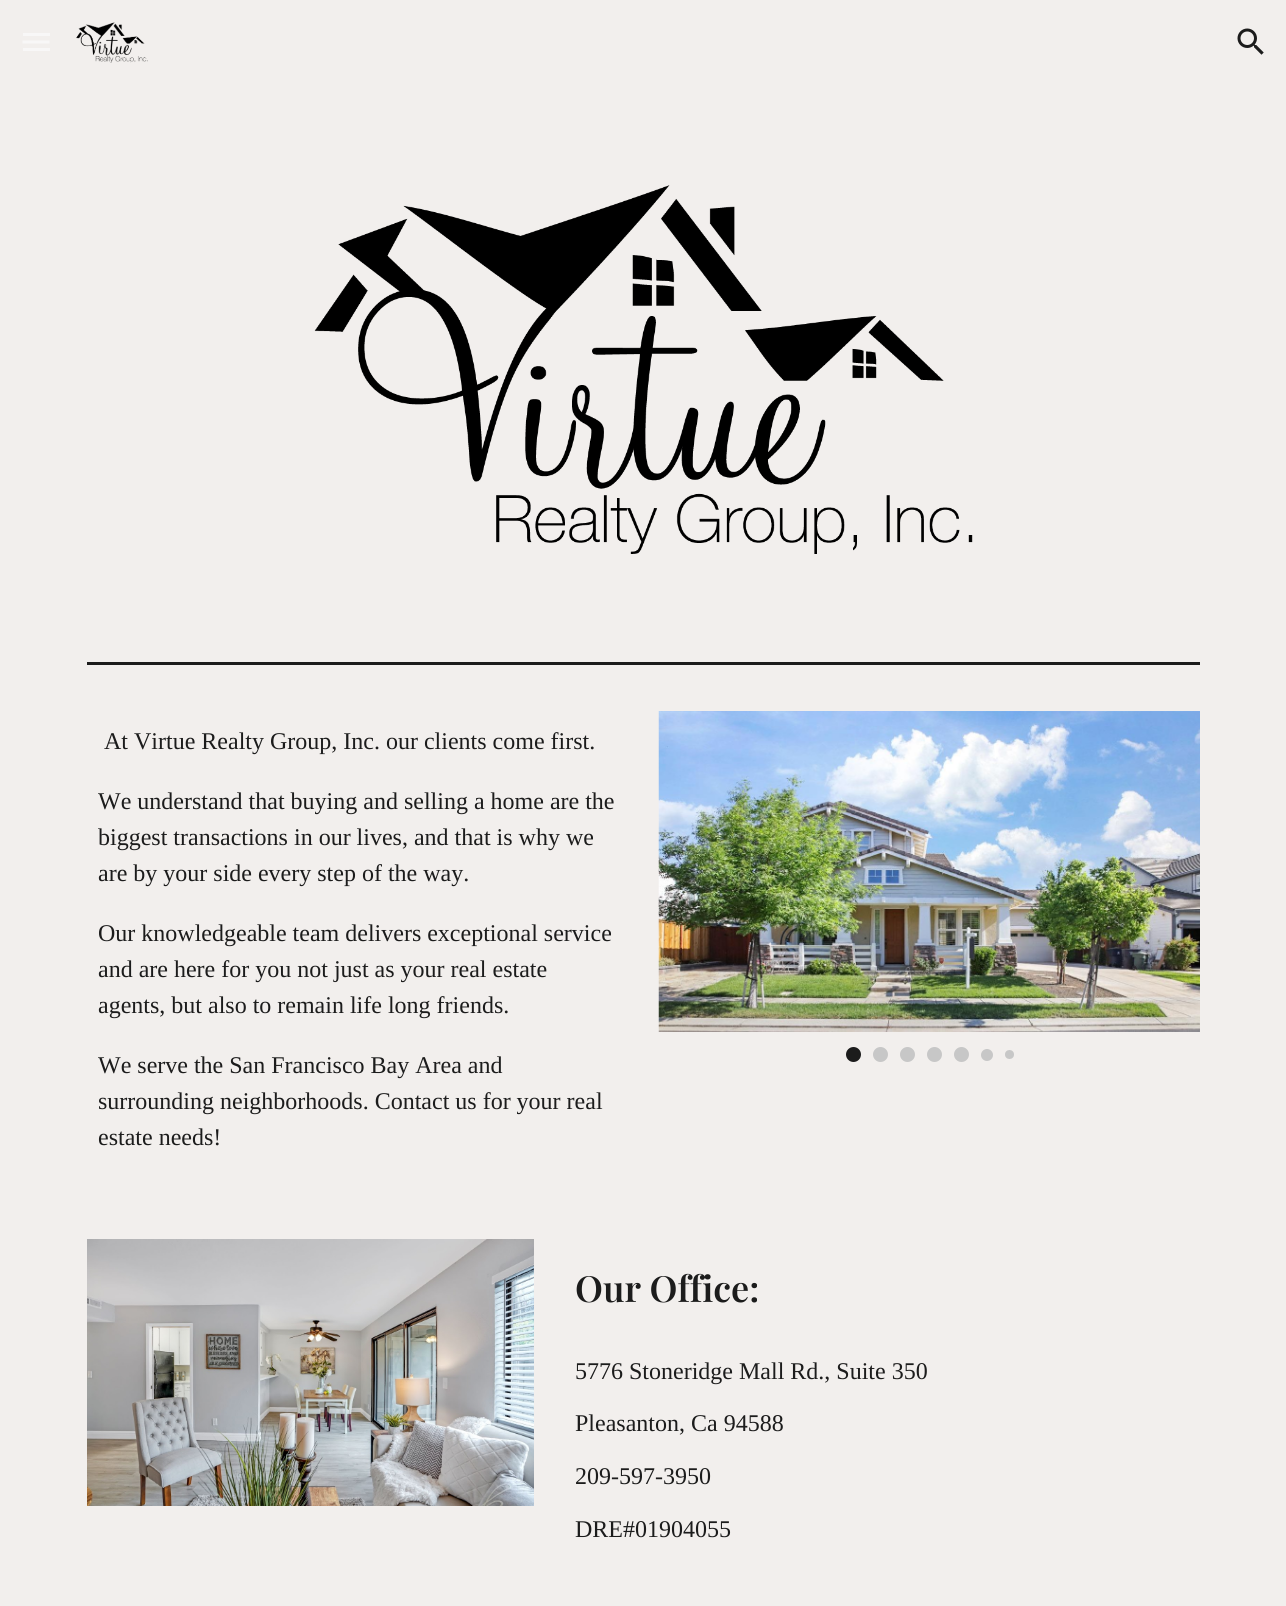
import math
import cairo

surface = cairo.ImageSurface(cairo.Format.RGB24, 1286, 1606)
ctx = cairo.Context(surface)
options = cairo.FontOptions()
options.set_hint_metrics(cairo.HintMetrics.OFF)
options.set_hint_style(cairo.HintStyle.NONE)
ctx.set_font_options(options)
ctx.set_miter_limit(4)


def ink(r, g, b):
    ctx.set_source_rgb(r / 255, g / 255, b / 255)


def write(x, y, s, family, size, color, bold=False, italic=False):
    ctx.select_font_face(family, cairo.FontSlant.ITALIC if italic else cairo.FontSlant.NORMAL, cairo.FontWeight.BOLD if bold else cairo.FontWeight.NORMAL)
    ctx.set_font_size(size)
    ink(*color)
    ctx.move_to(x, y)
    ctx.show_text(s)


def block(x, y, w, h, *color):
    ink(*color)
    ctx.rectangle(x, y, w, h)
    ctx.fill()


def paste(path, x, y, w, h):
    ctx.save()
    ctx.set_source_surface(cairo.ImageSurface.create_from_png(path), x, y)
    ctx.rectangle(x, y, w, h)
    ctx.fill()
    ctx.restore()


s1 = dict(family="Liberation Serif", size=24, color=(28, 28, 28))
s2 = dict(family="Playfair Display SemiBold", size=36, color=(28, 28, 28))

ink(242, 239, 237)
ctx.paint()
block(23, 33, 27, 3, 248, 247, 247)
ctx.new_path()
ctx.move_to(22.5, 42)
ctx.line_to(49.5, 42)
ctx.set_line_width(3)
ctx.stroke()
block(23, 48, 27, 3, 248, 247, 247)
paste("pic1.png", 76, 22, 72, 41)
paste("pic2.png", 1237, 28, 27, 27)
paste("pic3.png", 314, 185, 659, 369)
block(87, 662, 1113, 3, 28, 28, 28)
write(104, 749, "At Virtue Realty Group, Inc. our clients come first.", **s1)
write(98, 809, "We understand that buying and selling a home are the", **s1)
write(98, 845, "biggest transactions in our lives, and that is why we", **s1)
write(98, 881, "are by your side every step of the way.", **s1)
write(98, 941, "Our knowledgeable team delivers exceptional service", **s1)
write(98, 977, "and are here for you not just as your real estate", **s1)
write(98, 1013, "agents, but also to remain life long friends.", **s1)
write(98, 1073, "We serve the San Francisco Bay Area and", **s1)
write(98, 1109, "surrounding neighborhoods. Contact us for your real", **s1)
write(98, 1145, "estate needs!", **s1)
paste("pic4.png", 658, 711, 542, 321)
ctx.arc(853.5, 1054.5, 7.5, 0, 2 * math.pi)
ctx.fill()
ink(199, 199, 199)
ctx.arc(880.5, 1054.5, 7.5, 0, 2 * math.pi)
ctx.fill()
ctx.arc(907.5, 1054.5, 7.5, 0, 2 * math.pi)
ctx.fill()
ctx.arc(934.5, 1054.5, 7.5, 0, 2 * math.pi)
ctx.fill()
ctx.arc(961.5, 1054.5, 7.5, 0, 2 * math.pi)
ctx.fill()
ctx.arc(987, 1055, 6, 0, 2 * math.pi)
ctx.fill()
ctx.arc(1009.5, 1054.5, 4.5, 0, 2 * math.pi)
ctx.fill()
paste("pic5.png", 87, 1239, 447, 267)
write(575, 1302, "Our Office:", **s2)
write(575, 1379, "5776 Stoneridge Mall Rd., Suite 350", **s1)
write(575, 1431, "Pleasanton, Ca 94588", **s1)
write(575, 1484, "209-597-3950", **s1)
write(575, 1537, "DRE#01904055", **s1)
surface.write_to_png("screenshot.png")
